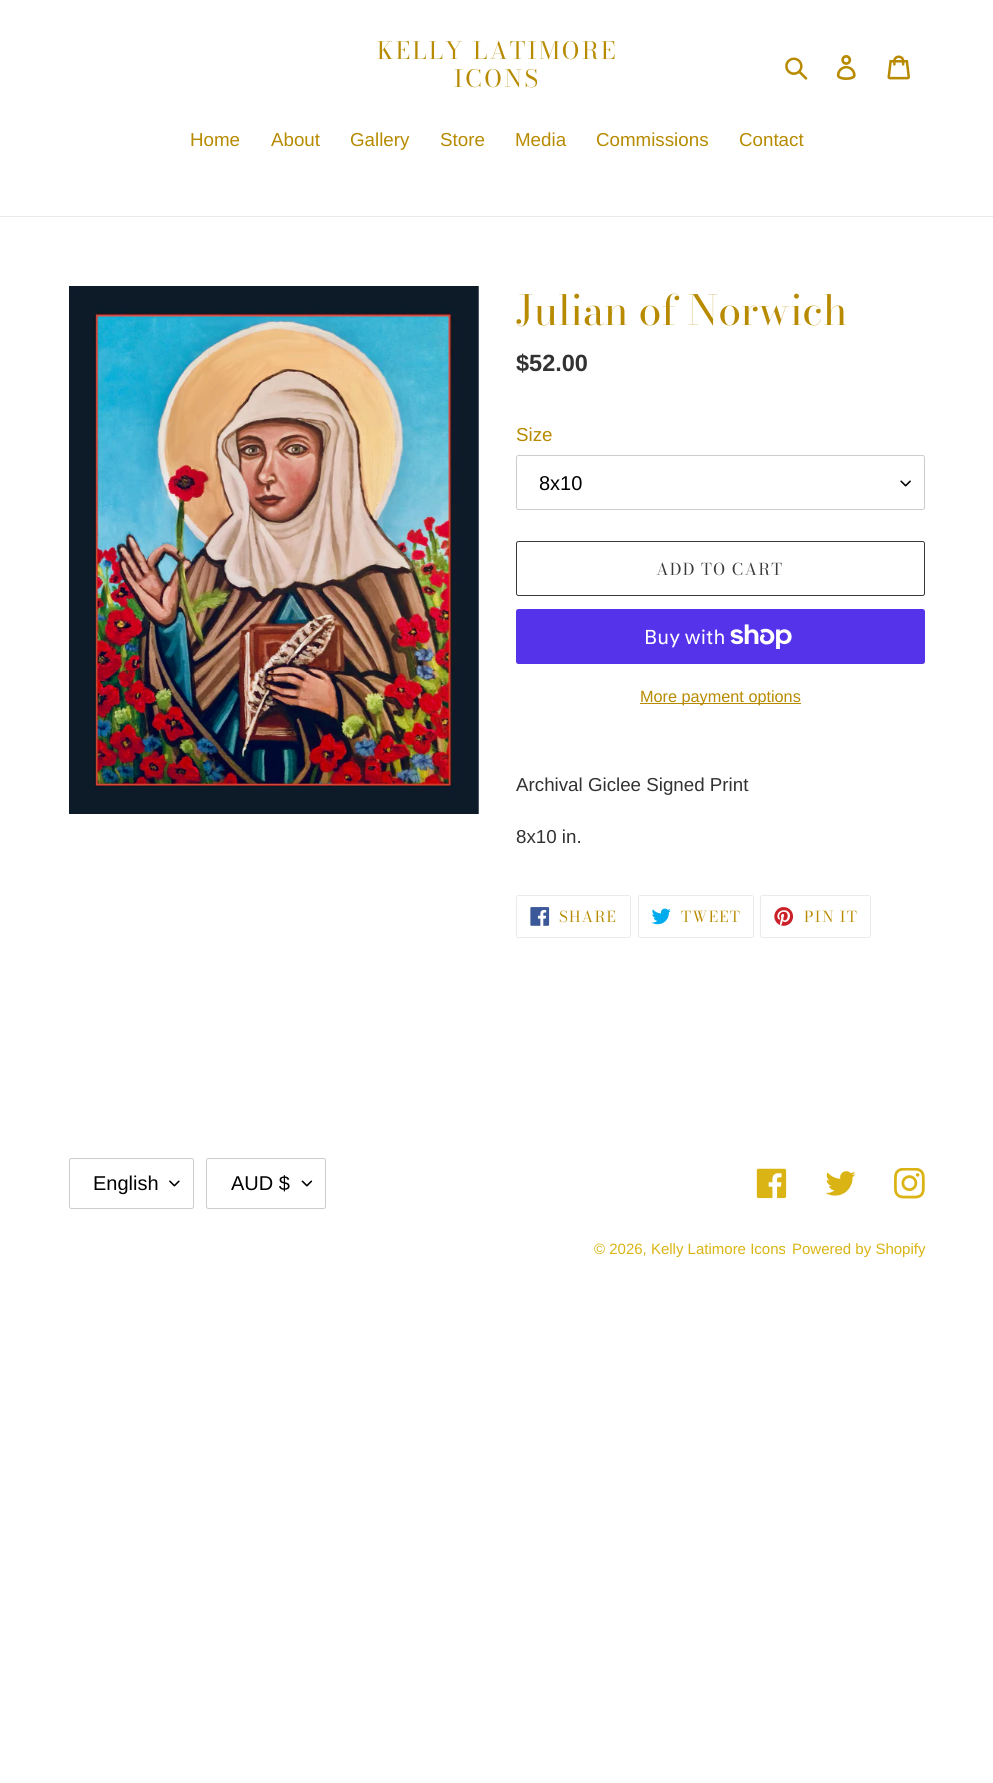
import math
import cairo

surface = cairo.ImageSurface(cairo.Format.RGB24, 993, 1783)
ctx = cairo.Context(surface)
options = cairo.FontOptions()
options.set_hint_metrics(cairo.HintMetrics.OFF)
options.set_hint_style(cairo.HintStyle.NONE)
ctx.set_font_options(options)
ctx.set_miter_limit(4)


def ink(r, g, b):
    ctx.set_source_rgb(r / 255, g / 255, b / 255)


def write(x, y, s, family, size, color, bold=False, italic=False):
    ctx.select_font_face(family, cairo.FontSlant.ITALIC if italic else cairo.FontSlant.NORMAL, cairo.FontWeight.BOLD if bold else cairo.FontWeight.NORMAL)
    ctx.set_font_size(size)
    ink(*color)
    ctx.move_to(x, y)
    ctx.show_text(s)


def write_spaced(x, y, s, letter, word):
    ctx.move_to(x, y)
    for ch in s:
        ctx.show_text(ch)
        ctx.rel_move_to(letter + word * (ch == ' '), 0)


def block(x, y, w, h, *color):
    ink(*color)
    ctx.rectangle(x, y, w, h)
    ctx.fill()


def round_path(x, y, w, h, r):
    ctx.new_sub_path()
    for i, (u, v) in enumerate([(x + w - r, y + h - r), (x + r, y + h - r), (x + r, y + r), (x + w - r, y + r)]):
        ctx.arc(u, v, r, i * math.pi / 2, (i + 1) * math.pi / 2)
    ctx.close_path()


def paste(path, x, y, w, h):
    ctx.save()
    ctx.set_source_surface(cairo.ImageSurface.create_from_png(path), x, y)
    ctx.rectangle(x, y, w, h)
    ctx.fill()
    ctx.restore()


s1 = dict(family="Liberation Sans", size=18.75, color=(183, 138, 0))
s2 = dict(family="Bodoni Moda", size=41.25, color=(183, 138, 0))
s3 = dict(family="Liberation Sans", size=23.5, color=(51, 50, 50), bold=True)
s4 = dict(family="Liberation Sans", size=20, color=(0, 0, 0))
s5 = dict(family="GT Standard", size=20, color=(255, 255, 255))
s6 = dict(family="Liberation Sans", size=16.25, color=(183, 138, 0))
s7 = dict(family="Liberation Sans", size=18.75, color=(51, 50, 50))
s8 = dict(family="Liberation Sans", size=15, color=(218, 180, 20))

ink(255, 255, 255)
ctx.paint()
ctx.select_font_face("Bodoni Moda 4")
ctx.set_font_size(23.75)
ink(183, 138, 0)
write_spaced(377, 59, "KELLY LATIMORE", 2.4, 0)
write_spaced(454, 87, "ICONS", 2.4, 0)
paste("pic1.png", 785, 57, 23, 23)
paste("pic2.png", 836, 55, 20, 25)
paste("pic3.png", 887, 55, 23, 25)
block(0, 216, 993, 1, 235, 235, 235)
write(190, 146, "Home", **s1)
write(271, 146, "About", **s1)
write(350, 146, "Gallery", **s1)
write(440, 146, "Store", **s1)
write(515, 146, "Media", **s1)
write(596, 146, "Commissions", **s1)
write(739, 146, "Contact", **s1)
paste("pic4.png", 69, 286, 410, 528)
write(516, 325, "Julian of Norwich", **s2)
write(516, 371, "$52.00", **s3)
write(516, 441, "Size", **s1)
paste("pic5.png", 900, 480, 11, 7)
round_path(516.5, 455.5, 408, 54, 2)
ink(204, 204, 204)
ctx.set_line_width(1)
ctx.stroke()
write(539, 490, "8x10", **s4)
round_path(516.5, 541.5, 408, 54, 2)
ink(58, 58, 58)
ctx.stroke()
ctx.select_font_face("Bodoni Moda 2")
ctx.set_font_size(16.25)
write_spaced(656, 575, "ADD TO CART", 1.25, 0)
ink(84, 51, 235)
round_path(516, 609, 409, 55, 2.5)
ctx.fill()
write(644, 644, "Buy with", **s5)
paste("pic6.png", 730, 624, 62, 25)
block(640, 703, 161, 1, 183, 138, 0)
write(640, 702, "More payment options", **s6)
write(516, 791, "Archival Giclee Signed Print", **s7)
write(516, 843, "8x10 in.", **s7)
round_path(516.5, 895.5, 114, 42, 2)
ink(235, 235, 235)
ctx.stroke()
paste("pic7.png", 530, 907, 20, 19)
ctx.select_font_face("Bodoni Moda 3")
ctx.set_font_size(15)
ink(183, 138, 0)
write_spaced(559, 922, "SHARE", 1.25, 0)
round_path(638.5, 895.5, 115, 42, 2)
ink(235, 235, 235)
ctx.stroke()
paste("pic8.png", 651, 908, 20, 17)
ink(183, 138, 0)
write_spaced(681, 922, "TWEET", 1.25, 0)
round_path(760.5, 895.5, 110, 42, 2)
ink(235, 235, 235)
ctx.stroke()
paste("pic9.png", 774, 907, 20, 19)
ink(183, 138, 0)
write_spaced(804, 922, "PIN IT", 1.25, 0)
paste("pic10.png", 169, 1180, 11, 7)
round_path(69.5, 1158.5, 124, 50, 2)
ink(204, 204, 204)
ctx.stroke()
write(93, 1190, "English", **s4)
paste("pic11.png", 301, 1180, 12, 7)
round_path(206.5, 1158.5, 119, 50, 2)
ink(204, 204, 204)
ctx.stroke()
write(231, 1190, "AUD $", **s4)
paste("pic12.png", 756, 1168, 31, 31)
paste("pic13.png", 825, 1171, 31, 25)
paste("pic14.png", 894, 1168, 31, 31)
write(594, 1254, "© 2026, Kelly Latimore Icons", **s8)
write(792, 1254, "Powered by Shopify", **s8)
surface.write_to_png("screenshot.png")
